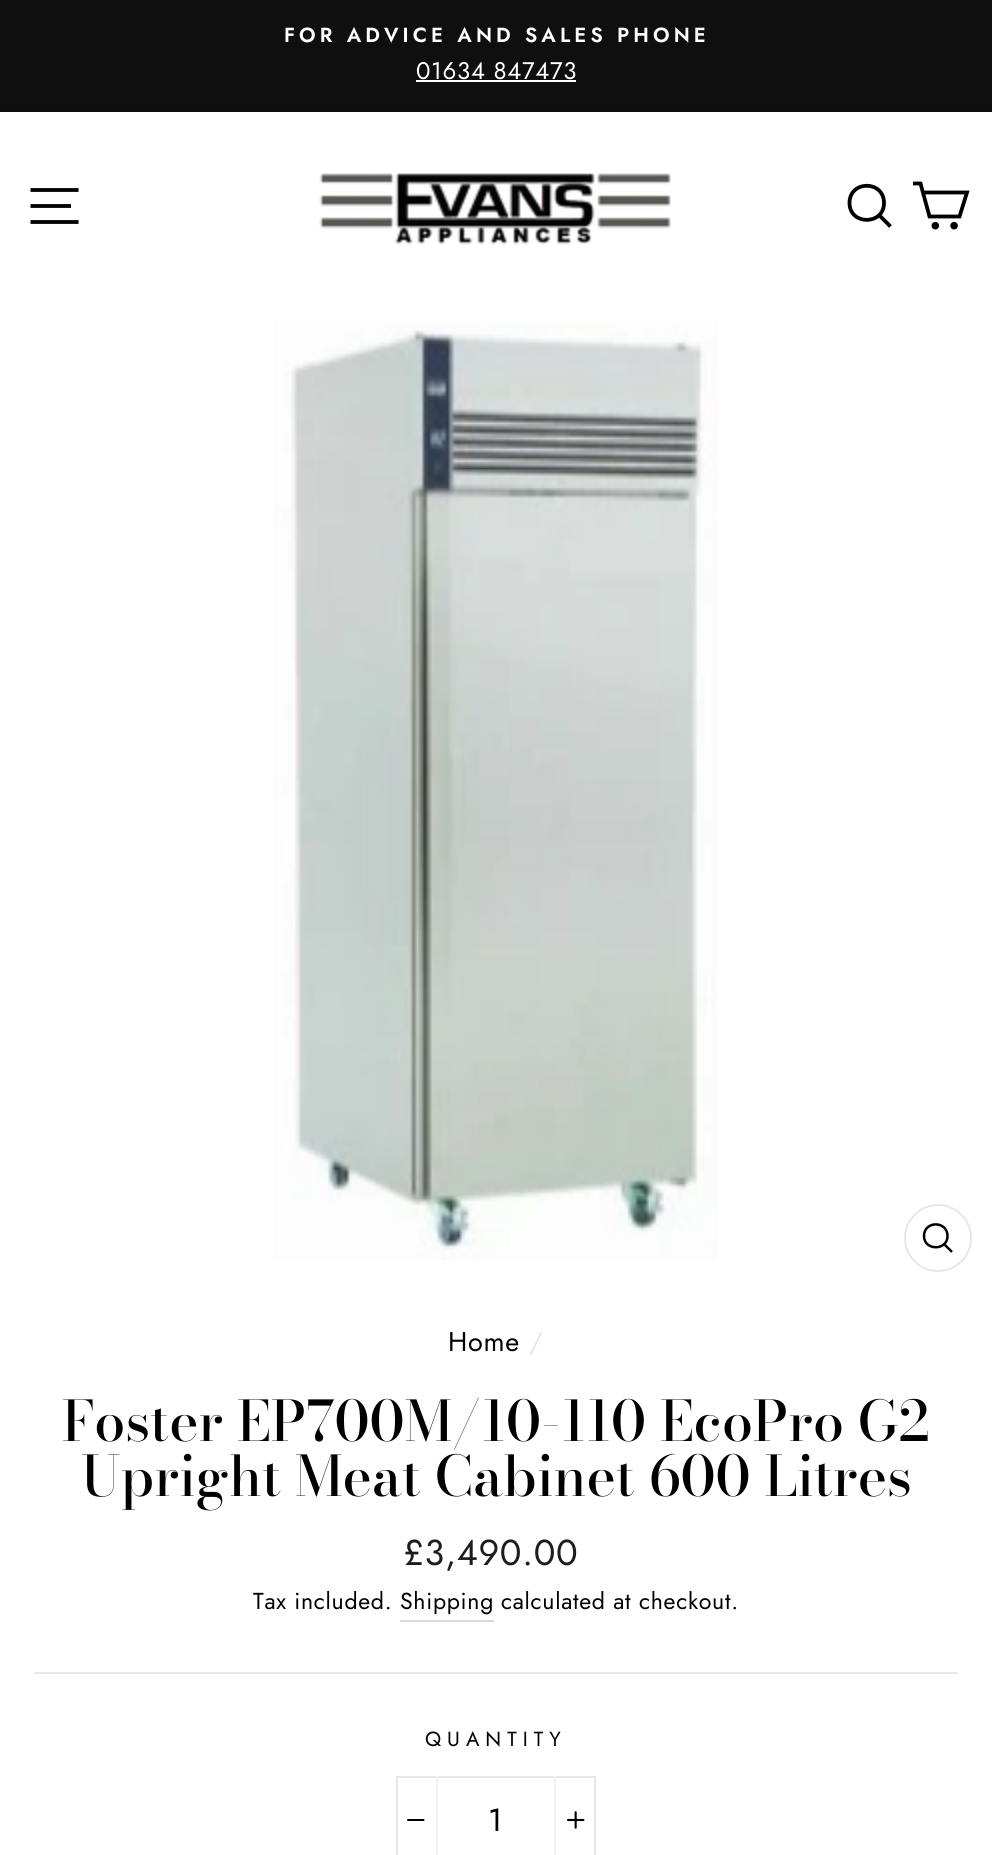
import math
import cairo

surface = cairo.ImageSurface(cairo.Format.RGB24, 992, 1855)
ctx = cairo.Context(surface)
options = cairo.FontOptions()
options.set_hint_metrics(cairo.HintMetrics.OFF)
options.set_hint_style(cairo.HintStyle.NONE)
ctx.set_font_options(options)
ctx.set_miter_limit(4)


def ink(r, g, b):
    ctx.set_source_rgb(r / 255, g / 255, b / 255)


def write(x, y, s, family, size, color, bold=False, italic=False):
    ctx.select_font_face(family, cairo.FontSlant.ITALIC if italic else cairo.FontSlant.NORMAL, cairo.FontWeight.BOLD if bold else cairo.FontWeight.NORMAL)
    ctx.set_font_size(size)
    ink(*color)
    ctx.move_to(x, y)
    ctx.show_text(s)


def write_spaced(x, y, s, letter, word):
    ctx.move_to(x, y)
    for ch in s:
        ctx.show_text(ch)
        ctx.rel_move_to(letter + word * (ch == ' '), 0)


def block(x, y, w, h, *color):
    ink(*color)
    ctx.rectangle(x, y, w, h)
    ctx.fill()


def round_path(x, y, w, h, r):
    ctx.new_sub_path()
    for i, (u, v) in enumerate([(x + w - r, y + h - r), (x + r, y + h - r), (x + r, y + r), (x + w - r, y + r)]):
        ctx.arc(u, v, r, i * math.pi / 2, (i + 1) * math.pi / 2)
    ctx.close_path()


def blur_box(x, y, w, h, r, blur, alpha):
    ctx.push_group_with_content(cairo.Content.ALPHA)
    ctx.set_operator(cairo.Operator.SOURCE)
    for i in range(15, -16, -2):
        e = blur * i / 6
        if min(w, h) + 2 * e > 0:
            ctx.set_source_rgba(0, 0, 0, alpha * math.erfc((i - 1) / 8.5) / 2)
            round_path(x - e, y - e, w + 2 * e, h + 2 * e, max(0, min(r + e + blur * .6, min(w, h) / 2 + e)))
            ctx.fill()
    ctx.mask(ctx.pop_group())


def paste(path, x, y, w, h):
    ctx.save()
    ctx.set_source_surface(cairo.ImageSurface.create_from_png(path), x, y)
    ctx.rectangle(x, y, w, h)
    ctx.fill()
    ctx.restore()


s1 = dict(family="Bodoni Moda Medium", size=55.5, color=(0, 0, 0))

ink(255, 255, 255)
ctx.paint()
block(0, 0, 992, 112, 15, 15, 15)
ctx.select_font_face("Jost SemiBold")
ctx.set_font_size(20.4)
ink(255, 255, 255)
write_spaced(284, 42, "FOR ADVICE AND SALES PHONE", 4.1, 0)
ctx.select_font_face("Jost")
ctx.set_font_size(24)
write_spaced(416, 79, "01634 847473", 0.7, 0)
block(416, 80, 160, 2, 255, 255, 255)
ctx.save()
ctx.rectangle(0, 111, 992, 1)
ctx.clip()
ink(0, 0, 0)
blur_box(0, 112, 992, 188, 0, 1, 0.2)
ctx.restore()
ctx.new_path()
ctx.move_to(30.5, 190)
ctx.line_to(78.5, 190)
ctx.move_to(30.5, 206)
ctx.line_to(71, 206)
ctx.move_to(30.5, 222)
ctx.line_to(78.5, 222)
ink(0, 0, 0)
ctx.set_line_width(3.8)
ctx.stroke()
paste("pic1.png", 319, 173, 352, 72)
ctx.new_path()
ctx.move_to(884, 203)
ctx.curve_to(884, 225.5, 849.5, 225.5, 849.5, 203)
ctx.curve_to(849.5, 180, 884, 180, 884, 203)
ctx.close_path()
ctx.move_to(890.5, 226.5)
ctx.line_to(879.5, 215.5)
ctx.stroke()
ctx.new_path()
ctx.move_to(923, 192.5)
ctx.line_to(967, 192.5)
ctx.line_to(959.5, 216.5)
ctx.line_to(929.5, 216.5)
ctx.line_to(920.5, 183.5)
ctx.line_to(913, 183.5)
ctx.stroke()
ctx.arc(935.3, 225.7, 1.9, 0, 2 * math.pi)
ctx.stroke()
ctx.arc(954.1, 225.7, 1.9, 0, 2 * math.pi)
ctx.stroke()
block(0, 300, 992, 2, 255, 255, 255)
paste("pic2.png", 274, 321, 444, 939)
ctx.arc(938, 1238, 33, 0, 2 * math.pi)
ink(232, 232, 225)
ctx.set_line_width(2)
ctx.stroke()
ctx.new_path()
ctx.move_to(947.5, 1236)
ctx.curve_to(947.5, 1251, 924, 1251, 924, 1236)
ctx.curve_to(924, 1220.5, 947.5, 1220.5, 947.5, 1236)
ctx.close_path()
ctx.move_to(952, 1252)
ctx.line_to(944, 1244)
ink(0, 0, 0)
ctx.set_line_width(2.5)
ctx.stroke()
ctx.set_font_size(27)
write_spaced(448, 1351, "Home", 0.7, 0)
ink(232, 232, 225)
write_spaced(529, 1351, "/", 0.7, 0)
write(62, 1441, "Foster EP700M/10-110 EcoPro G2", **s1)
write(81, 1496, "Upright Meat Cabinet 600 Litres", **s1)
ctx.select_font_face("Jost")
ctx.set_font_size(36)
ink(28, 29, 29)
write_spaced(403, 1565, "£3,490.00", 0.7, 0)
ctx.set_font_size(23.1)
ink(0, 0, 0)
write_spaced(253, 1609, "Tax included. Shipping", 0.7, 0)
write_spaced(501, 1609, "calculated at checkout.", 0.7, 0)
block(400, 1620, 94, 2, 217, 217, 217)
block(34, 1672, 924, 2, 232, 232, 225)
ctx.set_font_size(20.4)
ink(0, 0, 0)
write_spaced(425, 1746, "QUANTITY", 6, 0)
ctx.rectangle(397, 1777, 198, 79)
ink(232, 232, 225)
ctx.set_line_width(2)
ctx.stroke()
block(436, 1776, 2, 79, 242, 242, 242)
paste("pic3.png", 407, 1819, 18, 2)
ctx.set_font_size(32)
ink(0, 0, 0)
write_spaced(488, 1831, "1", 1, 0)
block(554, 1776, 2, 79, 242, 242, 242)
paste("pic4.png", 567, 1811, 18, 18)
surface.write_to_png("screenshot.png")
